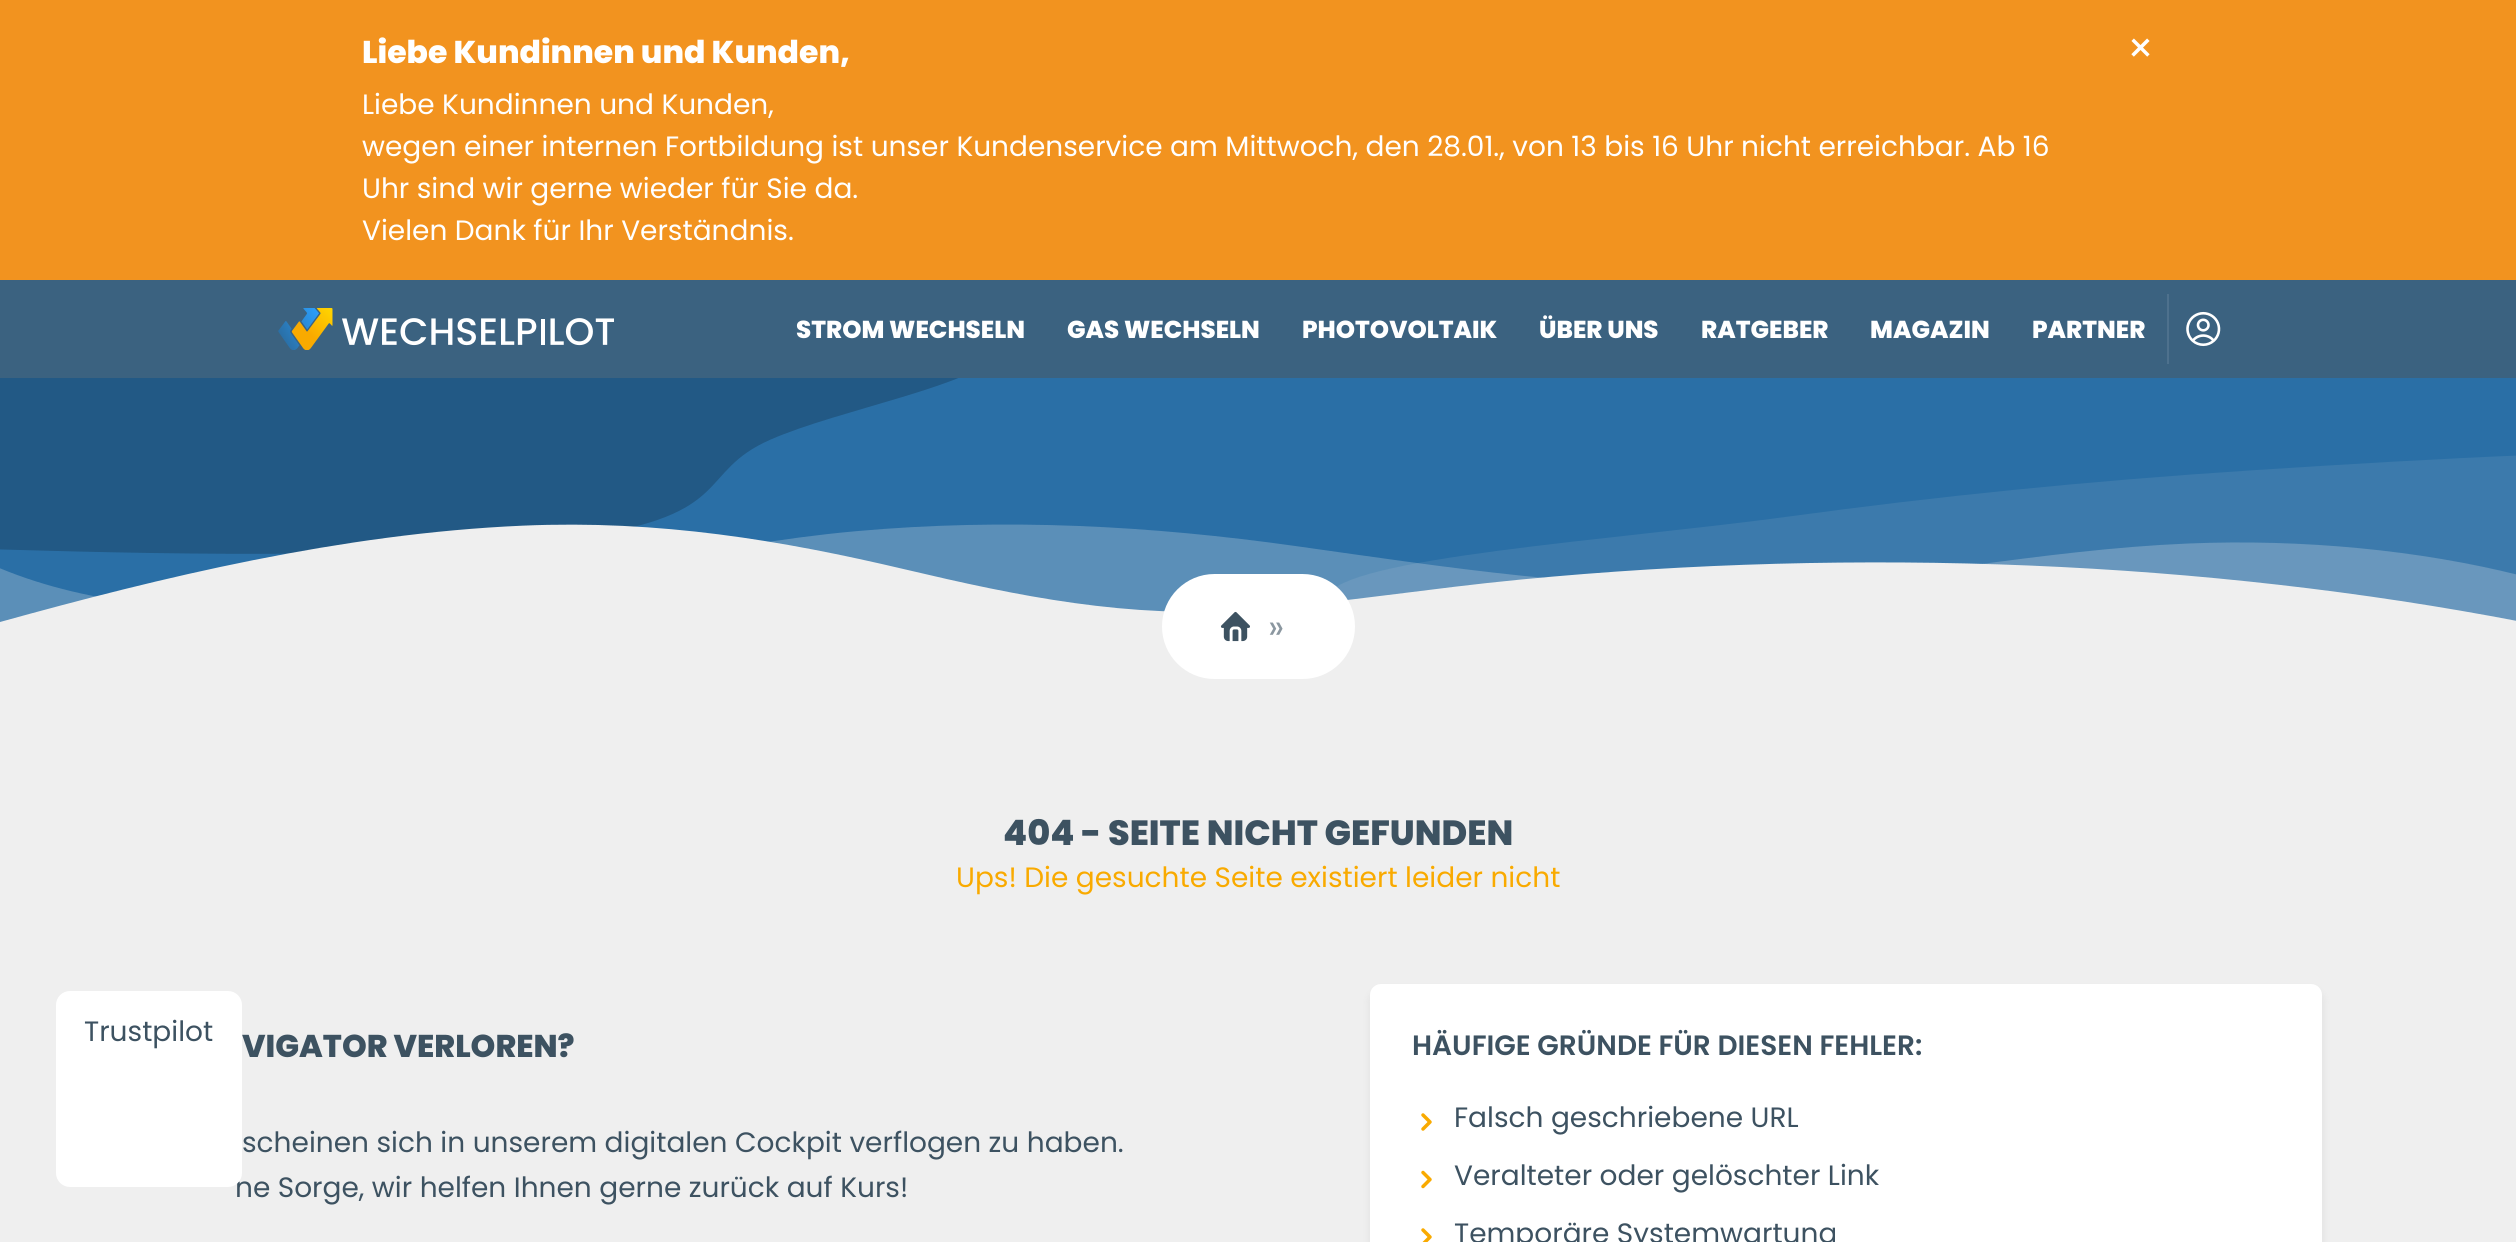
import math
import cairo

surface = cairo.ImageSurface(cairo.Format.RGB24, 2516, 1242)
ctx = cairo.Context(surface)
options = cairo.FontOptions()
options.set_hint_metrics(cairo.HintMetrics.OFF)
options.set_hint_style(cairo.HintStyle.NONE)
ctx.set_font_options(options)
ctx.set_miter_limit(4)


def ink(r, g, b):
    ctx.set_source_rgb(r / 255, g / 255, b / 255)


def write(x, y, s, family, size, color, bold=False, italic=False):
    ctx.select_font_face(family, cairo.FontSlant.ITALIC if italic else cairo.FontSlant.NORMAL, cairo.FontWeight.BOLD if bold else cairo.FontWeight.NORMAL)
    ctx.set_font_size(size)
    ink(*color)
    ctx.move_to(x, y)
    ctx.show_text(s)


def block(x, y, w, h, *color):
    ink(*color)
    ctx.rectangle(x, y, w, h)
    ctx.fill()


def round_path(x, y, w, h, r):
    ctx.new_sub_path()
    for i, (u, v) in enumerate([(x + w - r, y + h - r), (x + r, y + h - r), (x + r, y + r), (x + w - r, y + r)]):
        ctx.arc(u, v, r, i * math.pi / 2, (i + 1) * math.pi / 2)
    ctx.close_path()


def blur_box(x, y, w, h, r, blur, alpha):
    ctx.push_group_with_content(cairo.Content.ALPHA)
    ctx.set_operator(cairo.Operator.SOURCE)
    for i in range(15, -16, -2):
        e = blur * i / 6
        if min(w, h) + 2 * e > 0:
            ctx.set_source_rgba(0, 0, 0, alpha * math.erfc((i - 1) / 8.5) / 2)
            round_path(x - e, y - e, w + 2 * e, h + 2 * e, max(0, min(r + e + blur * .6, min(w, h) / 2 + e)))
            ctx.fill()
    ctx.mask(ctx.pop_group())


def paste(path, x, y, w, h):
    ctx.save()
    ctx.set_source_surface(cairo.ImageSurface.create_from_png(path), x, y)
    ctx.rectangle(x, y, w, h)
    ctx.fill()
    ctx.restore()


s1 = dict(family="Poppins ExtraBold", size=31.5, color=(255, 255, 255))
s2 = dict(family="Poppins", size=28, color=(255, 255, 255))
s3 = dict(family="Poppins", size=42, color=(255, 255, 255))
s4 = dict(family="Poppins ExtraBold", size=24.5, color=(255, 255, 255))
s5 = dict(family="Poppins", size=28, color=(61, 82, 97))
s6 = dict(family="Poppins", size=35, color=(139, 151, 160))
s7 = dict(family="Poppins ExtraBold", size=35, color=(61, 82, 97))
s8 = dict(family="Poppins", size=28, color=(249, 170, 0))
s9 = dict(family="Poppins ExtraBold", size=31.5, color=(61, 82, 97))
s10 = dict(family="Poppins SemiBold", size=28, color=(61, 82, 97))

ink(59, 98, 128)
ctx.paint()
block(0, 0, 2516, 280, 242, 147, 31)
write(362, 63, "Liebe Kundinnen und Kunden,", **s1)
write(362, 114, "Liebe Kundinnen und Kunden,", **s2)
write(362, 156, "wegen einer internen Fortbildung ist unser Kundenservice am Mittwoch, den 28.01., von 13 bis 16 Uhr nicht erreichbar. Ab 16", **s2)
write(362, 198, "Uhr sind wir gerne wieder für Sie da.", **s2)
write(362, 240, "Vielen Dank für Ihr Verständnis.", **s2)
write(2127, 63, "×", **s3)
paste("pic1.png", 278, 308, 336, 42)
write(796, 338, "STROM WECHSELN", **s4)
write(1067, 338, "GAS WECHSELN", **s4)
write(1302, 338, "PHOTOVOLTAIK", **s4)
write(1539, 338, "ÜBER UNS", **s4)
write(1701, 338, "RATGEBER", **s4)
write(1870, 338, "MAGAZIN", **s4)
write(2032, 338, "PARTNER", **s4)
block(2167, 294, 2, 70, 78, 113, 141)
paste("pic2.png", 2186, 311, 35, 36)
paste("pic3.png", 0, 378, 2516, 244)
paste("pic4.png", 0, 524, 2516, 102)
block(0, 626, 2516, 616, 239, 239, 239)
write(235, 1197, "ne Sorge, wir helfen Ihnen gerne zurück auf Kurs!", **s5)
ink(255, 255, 255)
round_path(56, 991, 186, 196, 14)
ctx.fill()
write(84, 1041, "Trustpilot", **s5)
ink(255, 255, 255)
round_path(1162, 574, 193, 105, 52.5)
ctx.fill()
paste("pic5.png", 1220, 611, 30, 31)
write(1268, 639, "»", **s6)
write(1003, 845, "404 - SEITE NICHT GEFUNDEN", **s7)
write(956, 887, "Ups! Die gesuchte Seite existiert leider nicht", **s8)
write(242, 1057, "VIGATOR VERLOREN?", **s9)
write(242, 1152, "scheinen sich in unserem digitalen Cockpit verflogen zu haben.", **s5)
ink(0, 0, 0)
blur_box(1372, 992, 949, 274, 9, 5, 0.1)
ink(255, 255, 255)
round_path(1370, 984, 952, 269, 11)
ctx.fill()
write(1412, 1055, "HÄUFIGE GRÜNDE FÜR DIESEN FEHLER:", **s10)
ctx.new_path()
ctx.move_to(1423, 1115)
ctx.line_to(1430, 1122)
ctx.line_to(1423, 1129)
ink(249, 170, 0)
ctx.set_line_width(3.5)
ctx.set_line_cap(cairo.LineCap.ROUND)
ctx.set_line_join(cairo.LineJoin.ROUND)
ctx.stroke()
write(1454, 1127, "Falsch geschriebene URL", **s5)
ctx.new_path()
ctx.move_to(1423, 1172.5)
ctx.line_to(1430, 1179.5)
ctx.line_to(1423, 1186.5)
ink(249, 170, 0)
ctx.stroke()
write(1454, 1185, "Veralteter oder gelöschter Link", **s5)
ctx.new_path()
ctx.move_to(1423, 1230)
ctx.line_to(1430, 1237)
ctx.line_to(1423, 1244)
ink(249, 170, 0)
ctx.stroke()
write(1454, 1243, "Temporäre Systemwartung", **s5)
surface.write_to_png("screenshot.png")
